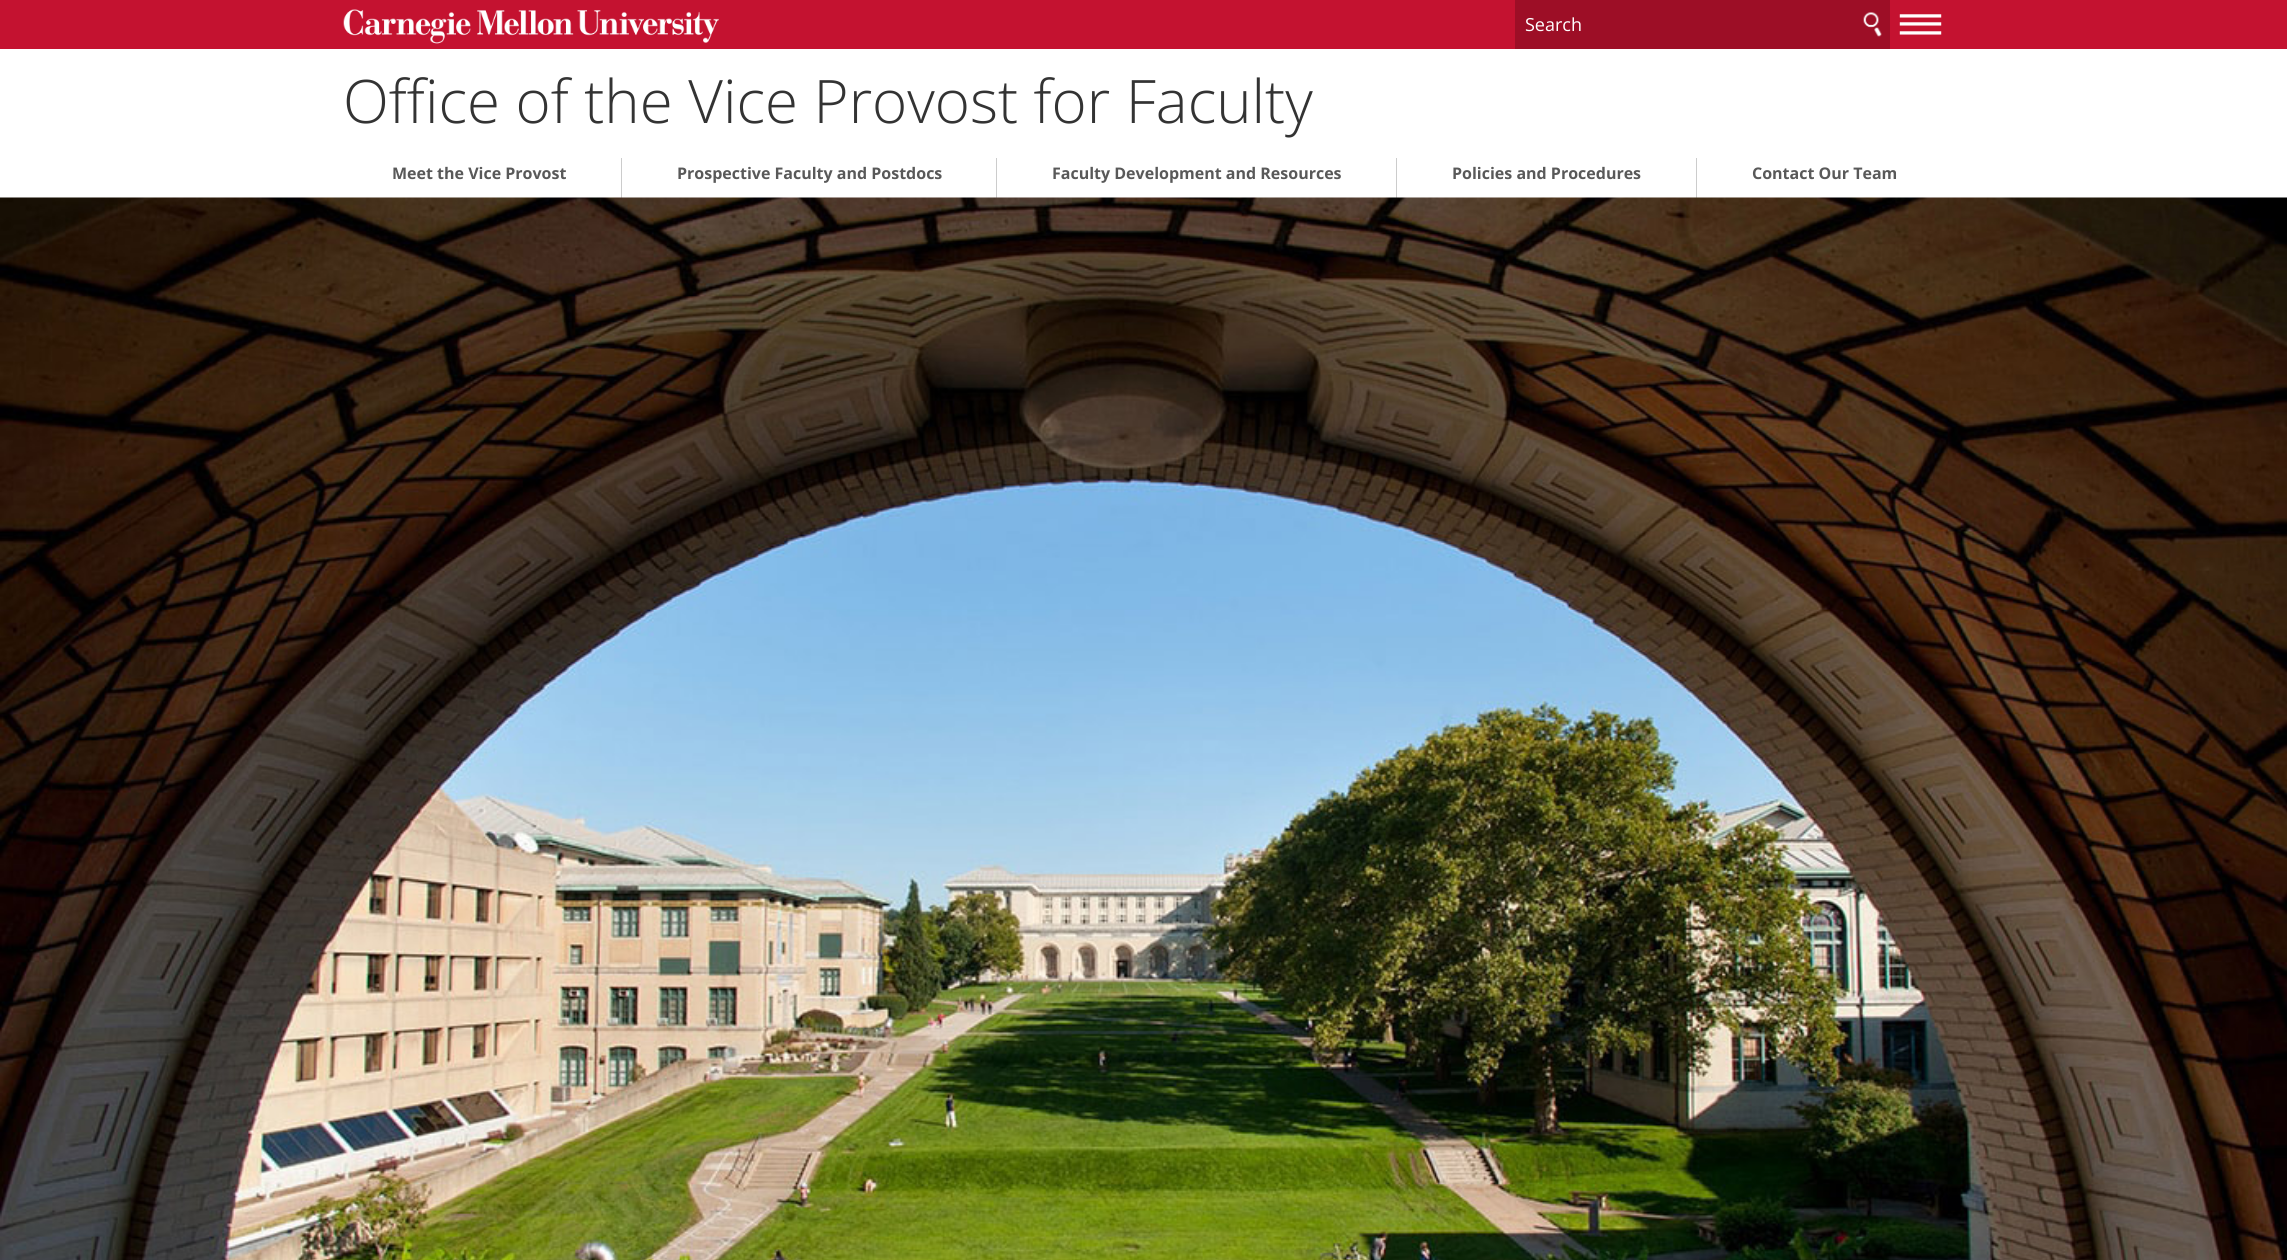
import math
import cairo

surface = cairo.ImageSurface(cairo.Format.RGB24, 2287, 1260)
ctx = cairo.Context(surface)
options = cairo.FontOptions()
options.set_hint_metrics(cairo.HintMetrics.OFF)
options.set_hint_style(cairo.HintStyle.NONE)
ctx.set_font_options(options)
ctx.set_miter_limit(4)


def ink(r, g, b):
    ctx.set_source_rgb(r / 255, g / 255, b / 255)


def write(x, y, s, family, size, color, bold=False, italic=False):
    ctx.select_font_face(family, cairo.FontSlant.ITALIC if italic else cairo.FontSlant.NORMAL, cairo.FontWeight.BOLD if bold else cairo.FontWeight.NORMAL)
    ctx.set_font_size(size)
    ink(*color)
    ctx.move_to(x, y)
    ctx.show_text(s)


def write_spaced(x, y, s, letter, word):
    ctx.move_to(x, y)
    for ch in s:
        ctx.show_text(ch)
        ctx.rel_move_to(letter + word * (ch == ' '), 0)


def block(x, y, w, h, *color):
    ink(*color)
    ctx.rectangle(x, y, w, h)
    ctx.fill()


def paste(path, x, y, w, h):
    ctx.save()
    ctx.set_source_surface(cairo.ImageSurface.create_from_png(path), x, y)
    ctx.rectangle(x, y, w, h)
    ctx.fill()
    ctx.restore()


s1 = dict(family="Open Sans", size=18, color=(255, 255, 255))
s2 = dict(family="Open Sans Light", size=60, color=(51, 51, 51))
s3 = dict(family="Open Sans", size=16, color=(89, 89, 89), bold=True)

ink(255, 255, 255)
ctx.paint()
block(0, 0, 2287, 49, 196, 18, 48)
paste("pic1.png", 343, 9, 376, 35)
block(1515, 0, 375, 49, 157, 14, 38)
write(1525, 31, "Search", **s1)
paste("pic2.png", 1863, 12, 19, 25)
ctx.set_font_size(45)
write_spaced(1898, 28, "—", 1, 0)
write_spaced(1898, 36, "—", 1, 0)
write_spaced(1898, 45, "—", 1, 0)
write(343, 123, "Office of the Vice Provost for Faculty", **s2)
write(392, 179, "Meet the Vice Provost", **s3)
block(621, 158, 1, 40, 204, 204, 204)
write(677, 179, "Prospective Faculty and Postdocs", **s3)
block(996, 158, 1, 40, 204, 204, 204)
write(1052, 179, "Faculty Development and Resources", **s3)
block(1396, 158, 1, 40, 204, 204, 204)
write(1452, 179, "Policies and Procedures", **s3)
block(1696, 158, 1, 40, 204, 204, 204)
write(1752, 179, "Contact Our Team", **s3)
paste("pic3.png", 0, 197, 2287, 1063)
surface.write_to_png("screenshot.png")
